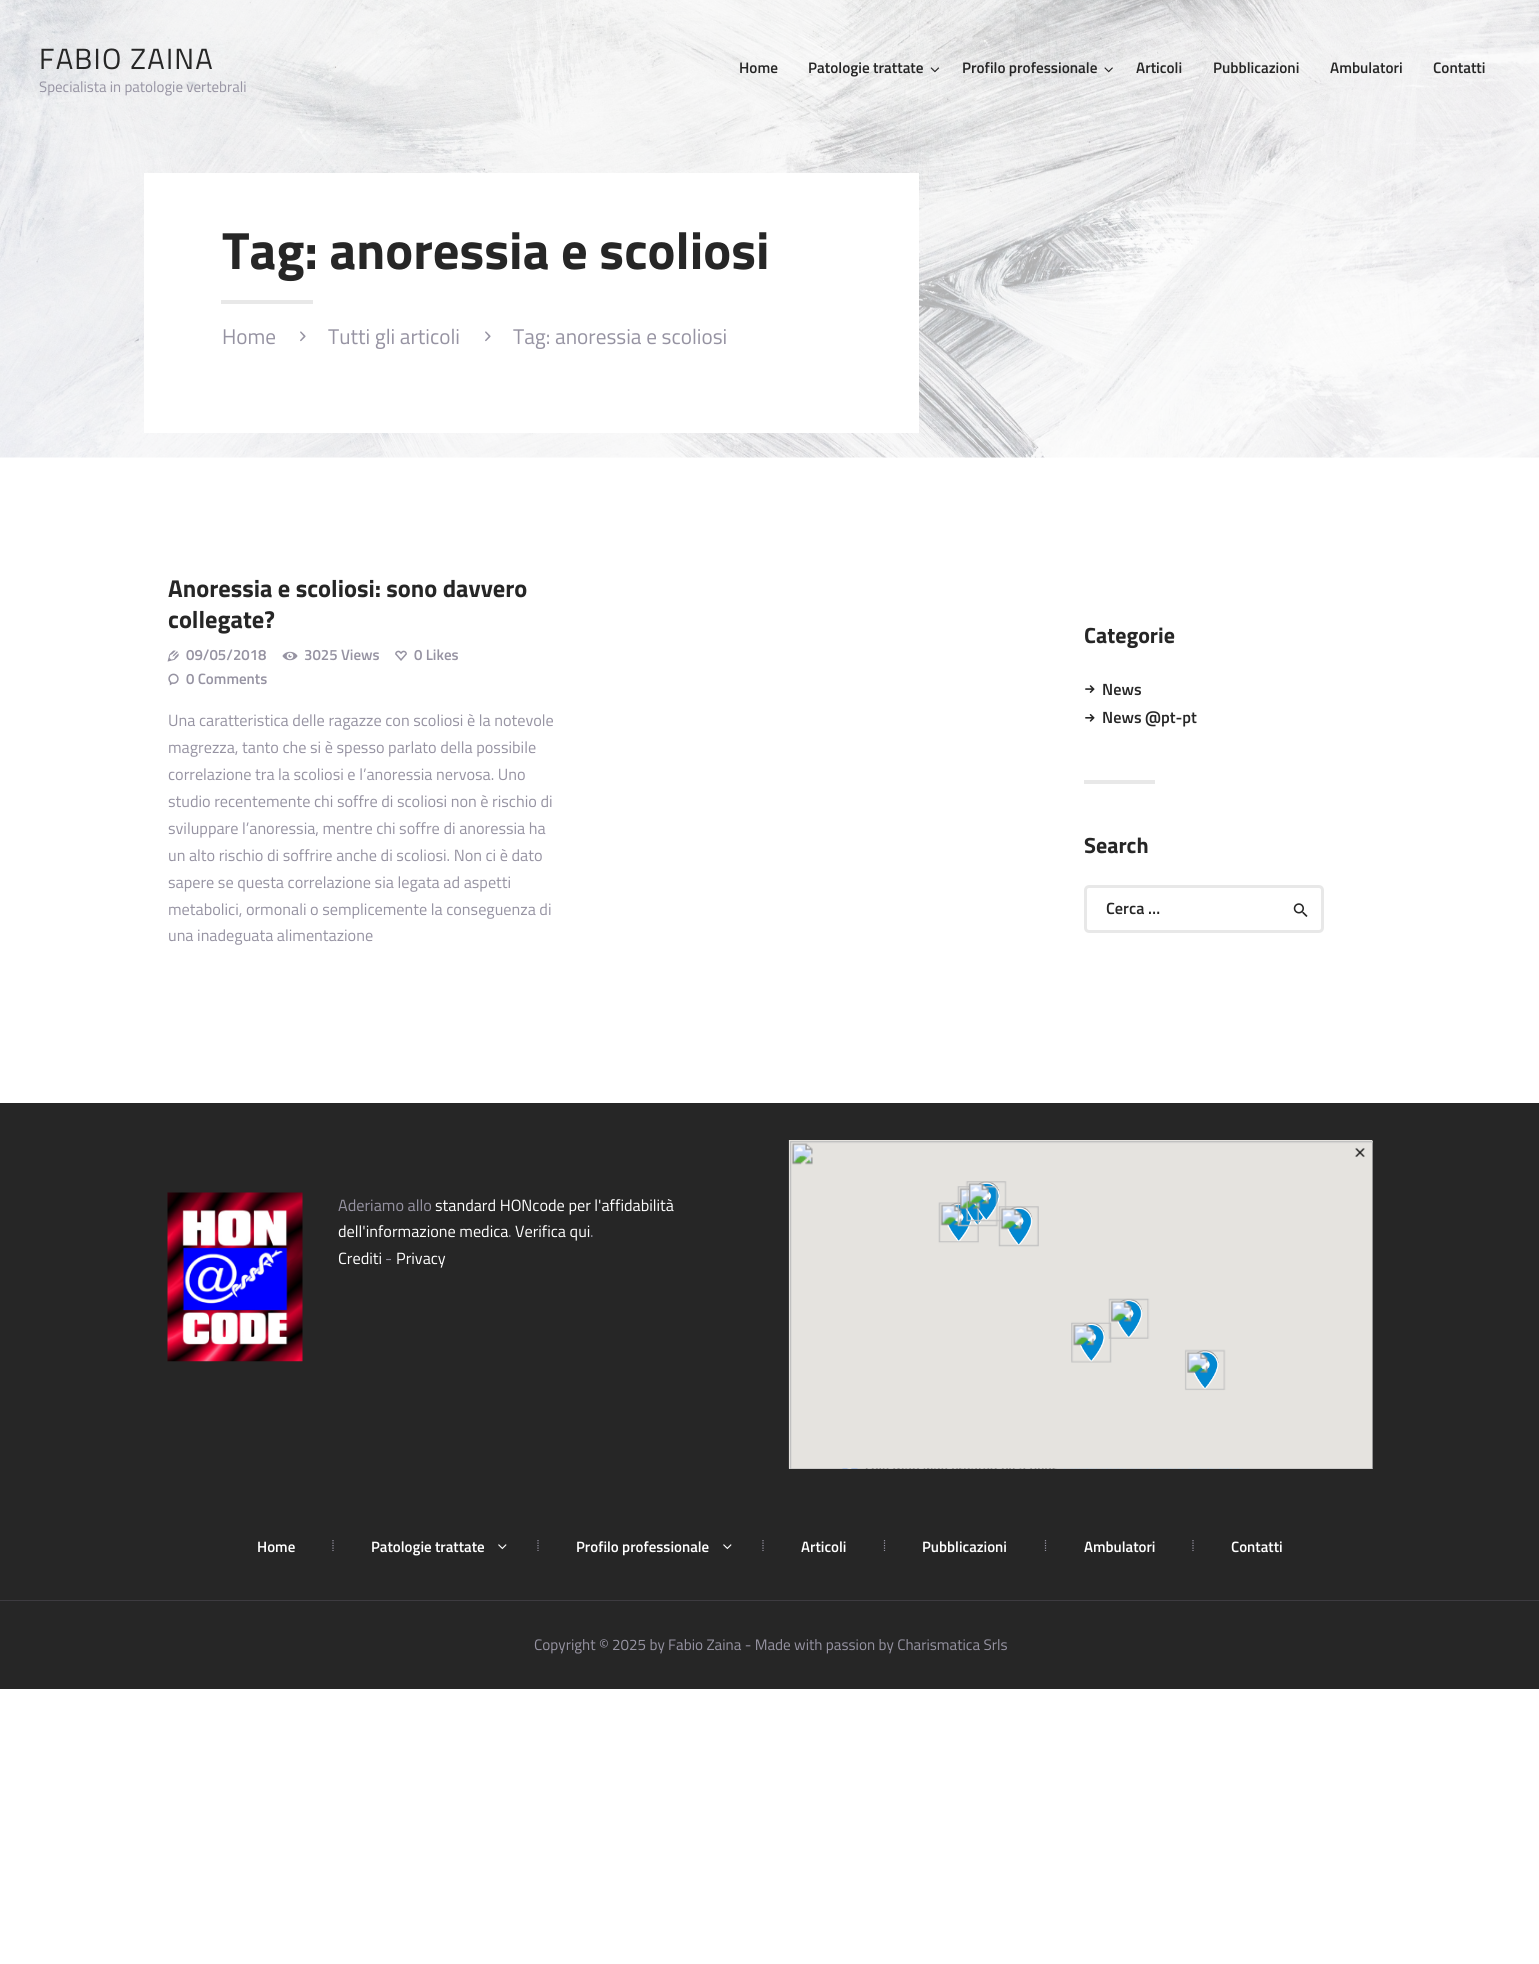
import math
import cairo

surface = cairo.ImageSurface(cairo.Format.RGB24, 1539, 1964)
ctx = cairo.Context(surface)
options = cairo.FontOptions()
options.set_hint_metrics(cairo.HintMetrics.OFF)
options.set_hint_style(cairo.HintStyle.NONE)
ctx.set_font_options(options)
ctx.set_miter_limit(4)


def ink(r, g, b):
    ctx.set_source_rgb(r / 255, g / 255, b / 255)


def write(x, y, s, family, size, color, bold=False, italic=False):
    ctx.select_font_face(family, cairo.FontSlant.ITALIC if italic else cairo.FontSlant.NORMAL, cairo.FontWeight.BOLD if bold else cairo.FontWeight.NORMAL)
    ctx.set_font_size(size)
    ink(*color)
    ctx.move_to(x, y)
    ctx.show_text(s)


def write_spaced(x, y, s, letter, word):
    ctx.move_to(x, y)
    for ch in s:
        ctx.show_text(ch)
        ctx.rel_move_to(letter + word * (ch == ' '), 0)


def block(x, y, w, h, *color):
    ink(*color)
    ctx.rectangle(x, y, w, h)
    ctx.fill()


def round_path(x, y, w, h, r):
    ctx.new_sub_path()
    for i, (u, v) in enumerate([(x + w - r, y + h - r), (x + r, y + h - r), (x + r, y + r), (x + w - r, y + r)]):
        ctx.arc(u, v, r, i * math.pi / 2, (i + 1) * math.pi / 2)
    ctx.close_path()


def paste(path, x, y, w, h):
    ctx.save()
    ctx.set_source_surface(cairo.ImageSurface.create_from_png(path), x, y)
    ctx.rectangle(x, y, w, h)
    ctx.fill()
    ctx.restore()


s1 = dict(family="Titillium Web", size=15, color=(150, 147, 162))
s2 = dict(family="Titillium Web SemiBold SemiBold", size=15.25, color=(38, 38, 38))
s3 = dict(family="Titillium Web", size=52.5, color=(38, 38, 38), bold=True)
s4 = dict(family="Titillium Web", size=21.25, color=(150, 147, 162))
s5 = dict(family="Titillium Web", size=24.4, color=(38, 38, 38), bold=True)
s6 = dict(family="Titillium Web SemiBold SemiBold", size=15, color=(150, 147, 162))
s7 = dict(family="Titillium Web", size=16.25, color=(150, 147, 162))
s8 = dict(family="Titillium Web", size=22, color=(38, 38, 38), bold=True)
s9 = dict(family="Titillium Web SemiBold SemiBold", size=16.25, color=(38, 38, 38))
s10 = dict(family="Titillium Web", size=16.25, color=(255, 255, 255))
s11 = dict(family="Titillium Web SemiBold SemiBold", size=15, color=(255, 255, 255))
s12 = dict(family="Titillium Web", size=15.2, color=(150, 147, 162))

ink(255, 255, 255)
ctx.paint()
paste("pic1.png", 0, 0, 1539, 458)
ctx.select_font_face("Titillium Web")
ctx.set_font_size(29.25)
ink(38, 38, 38)
write_spaced(39, 69, "FABIO ZAINA", 1.25, 0)
write(39, 92, "Specialista in patologie vertebrali", **s1)
write(739, 73, "Home", **s2)
write(808, 73, "Patologie trattate", **s2)
paste("pic2.png", 930, 67, 10, 6)
write(962, 73, "Profilo professionale", **s2)
paste("pic3.png", 1104, 67, 9, 6)
write(1136, 73, "Articoli", **s2)
write(1213, 73, "Pubblicazioni", **s2)
write(1330, 73, "Ambulatori", **s2)
write(1433, 73, "Contatti", **s2)
block(144, 173, 775, 260, 255, 255, 255)
write(222, 269, "Tag: anoressia e scoliosi", **s3)
block(221, 300, 92, 4, 232, 232, 232)
write(222, 344, "Home", **s4)
paste("pic4.png", 300, 331, 6, 11)
write(328, 344, "Tutti gli articoli", **s4)
paste("pic4.png", 485, 331, 6, 11)
write(513, 344, "Tag: anoressia e scoliosi", **s4)
write(168, 597, "Anoressia e scoliosi: sono davvero", **s5)
write(168, 628, "collegate?", **s5)
paste("pic5.png", 167, 650, 12, 12)
write(186, 660, "09/05/2018", **s6)
paste("pic6.png", 282, 651, 16, 10)
write(304, 660, "3025 Views", **s6)
paste("pic7.png", 395, 650, 12, 11)
write(414, 660, "0 Likes", **s6)
paste("pic8.png", 168, 673, 11, 13)
write(186, 684, "0 Comments", **s6)
write(168, 726, "Una caratteristica delle ragazze con scoliosi è la notevole", **s7)
write(168, 753, "magrezza, tanto che si è spesso parlato della possibile", **s7)
write(168, 780, "correlazione tra la scoliosi e l’anoressia nervosa. Uno", **s7)
write(168, 807, "studio recentemente chi soffre di scoliosi non è rischio di", **s7)
write(168, 834, "sviluppare l’anoressia, mentre chi soffre di anoressia ha", **s7)
write(168, 861, "un alto rischio di soffrire anche di scoliosi. Non ci è dato", **s7)
write(168, 888, "sapere se questa correlazione sia legata ad aspetti", **s7)
write(168, 915, "metabolici, ormonali o semplicemente la conseguenza di", **s7)
write(168, 941, "una inadeguata alimentazione", **s7)
write(1084, 643, "Categorie", **s8)
paste("pic9.png", 1085, 685, 10, 8)
write(1102, 695, "News", **s9)
paste("pic10.png", 1085, 714, 10, 8)
write(1102, 723, "News @pt-pt", **s9)
block(1084, 780, 71, 4, 232, 232, 232)
write(1084, 853, "Search", **s8)
round_path(1085.5, 886.5, 237, 45, 3.5)
ink(232, 232, 232)
ctx.set_line_width(3)
ctx.stroke()
write(1106, 914, "Cerca …", **s9)
paste("pic11.png", 1293, 903, 15, 14)
block(0, 1103, 1539, 586, 38, 38, 38)
paste("pic12.png", 167, 1192, 136, 170)
write(338, 1211, "Aderiamo allo", **s7)
write(435, 1211, "standard HONcode per l'affidabilità", **s10)
write(338, 1237, "dell'informazione medica", **s10)
write(508, 1237, ".", **s7)
write(515, 1237, "Verifica qui", **s10)
write(590, 1237, ".", **s7)
write(338, 1264, "Crediti", **s10)
write(385, 1264, "-", **s7)
write(396, 1264, "Privacy", **s10)
paste("pic13.png", 788, 1140, 585, 329)
write(257, 1552, "Home", **s11)
ctx.new_path()
ctx.move_to(333, 1540)
ctx.line_to(333, 1551)
ink(150, 147, 162)
ctx.set_line_width(1.2)
ctx.set_dash([1.25, 1.25])
ctx.stroke()
write(371, 1552, "Patologie trattate", **s11)
paste("pic14.png", 498, 1544, 9, 6)
ctx.new_path()
ctx.move_to(538, 1540)
ctx.line_to(538, 1551)
ink(150, 147, 162)
ctx.stroke()
write(576, 1552, "Profilo professionale", **s11)
paste("pic14.png", 723, 1544, 9, 6)
ctx.new_path()
ctx.move_to(763, 1540)
ctx.line_to(763, 1551)
ink(150, 147, 162)
ctx.stroke()
write(801, 1552, "Articoli", **s11)
ctx.new_path()
ctx.move_to(884.5, 1540)
ctx.line_to(884.5, 1551)
ink(150, 147, 162)
ctx.stroke()
write(922, 1552, "Pubblicazioni", **s11)
ctx.new_path()
ctx.move_to(1045.5, 1540)
ctx.line_to(1045.5, 1551)
ink(150, 147, 162)
ctx.stroke()
write(1084, 1552, "Ambulatori", **s11)
ctx.new_path()
ctx.move_to(1193, 1540)
ctx.line_to(1193, 1551)
ink(150, 147, 162)
ctx.stroke()
write(1231, 1552, "Contatti", **s11)
block(0, 1600, 1539, 1, 61, 59, 64)
write(534, 1650, "Copyright © 2025 by Fabio Zaina - Made with passion by Charismatica Srls", **s12)
surface.write_to_png("screenshot.png")
